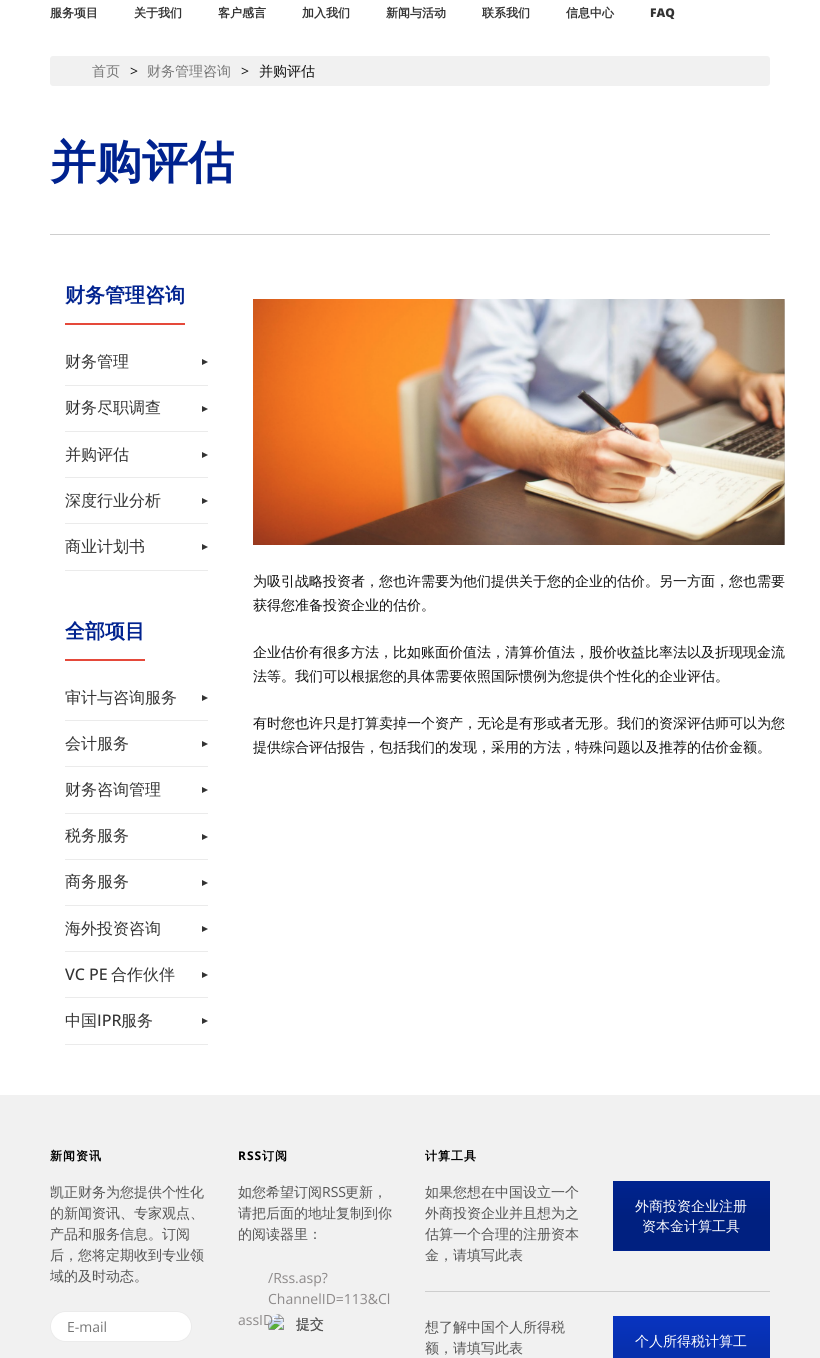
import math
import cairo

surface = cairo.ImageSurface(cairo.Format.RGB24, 820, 1358)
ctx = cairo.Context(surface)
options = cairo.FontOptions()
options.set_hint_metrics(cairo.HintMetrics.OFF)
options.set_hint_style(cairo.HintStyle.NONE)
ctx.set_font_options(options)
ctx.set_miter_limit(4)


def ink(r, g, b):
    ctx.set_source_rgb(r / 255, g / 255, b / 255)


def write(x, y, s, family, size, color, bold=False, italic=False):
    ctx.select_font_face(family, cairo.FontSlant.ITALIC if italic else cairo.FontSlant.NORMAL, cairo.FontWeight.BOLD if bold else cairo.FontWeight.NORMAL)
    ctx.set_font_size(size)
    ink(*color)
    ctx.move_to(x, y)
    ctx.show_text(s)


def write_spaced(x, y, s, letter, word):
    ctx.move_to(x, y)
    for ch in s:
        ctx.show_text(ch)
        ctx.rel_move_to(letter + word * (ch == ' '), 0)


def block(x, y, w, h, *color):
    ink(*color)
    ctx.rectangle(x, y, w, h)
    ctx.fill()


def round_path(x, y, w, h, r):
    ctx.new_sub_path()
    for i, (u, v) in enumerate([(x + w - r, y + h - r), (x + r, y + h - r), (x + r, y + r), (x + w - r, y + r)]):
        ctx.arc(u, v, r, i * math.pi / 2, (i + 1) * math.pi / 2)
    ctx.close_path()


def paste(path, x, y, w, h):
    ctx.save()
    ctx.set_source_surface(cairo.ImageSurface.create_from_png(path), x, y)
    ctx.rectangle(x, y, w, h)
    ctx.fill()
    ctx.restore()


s1 = dict(family="WenQuanYi Zen Hei", size=12, color=(51, 51, 51), bold=True)
s2 = dict(family="Open Sans ExtraBold", size=12, color=(51, 51, 51))
s3 = dict(family="WenQuanYi Zen Hei Medium", size=14, color=(119, 119, 119))
s4 = dict(family="Open Sans", size=14, color=(17, 17, 17))
s5 = dict(family="WenQuanYi Zen Hei Medium", size=14, color=(17, 17, 17))
s6 = dict(family="WenQuanYi Zen Hei", size=46, color=(0, 34, 143), bold=True)
s7 = dict(family="WenQuanYi Zen Hei", size=20, color=(0, 34, 143), bold=True)
s8 = dict(family="WenQuanYi Zen Hei Medium", size=16, color=(51, 51, 51))
s9 = dict(family="Open Sans Medium", size=16, color=(51, 51, 51))
s10 = dict(family="WenQuanYi Zen Hei Medium", size=14, color=(85, 85, 85))
s11 = dict(family="Open Sans", size=14, color=(119, 119, 119))
s12 = dict(family="Open Sans", size=14, color=(85, 85, 85))
s13 = dict(family="Open Sans", size=14, color=(140, 137, 137))
s14 = dict(family="WenQuanYi Zen Hei Medium", size=14, color=(255, 255, 255))

ink(255, 255, 255)
ctx.paint()
write(50, 17, "服务项目", **s1)
write(134, 17, "关于我们", **s1)
write(218, 17, "客户感言", **s1)
write(302, 17, "加入我们", **s1)
write(386, 17, "新闻与活动", **s1)
write(482, 17, "联系我们", **s1)
write(566, 17, "信息中心", **s1)
write(650, 17, "FAQ", **s2)
ink(241, 241, 241)
round_path(50, 56, 720, 30, 3)
ctx.fill()
write(92, 76, "首页", **s3)
write(130, 76, ">", **s4)
write(147, 76, "财务管理咨询", **s3)
write(241, 76, ">", **s4)
write(259, 76, "并购评估", **s5)
block(50, 234, 720, 1, 206, 206, 206)
write(50, 178, "并购评估", **s6)
block(65, 323, 120, 2, 229, 73, 58)
write(65, 302, "财务管理咨询", **s7)
block(65, 385, 143, 1, 235, 235, 235)
write(65, 367, "财务管理", **s8)
ctx.new_path()
ctx.move_to(202, 365)
ctx.line_to(202, 359)
ctx.line_to(208, 362)
ctx.close_path()
ctx.fill()
block(65, 431, 143, 1, 235, 235, 235)
write(65, 413, "财务尽职调查", **s8)
ctx.new_path()
ctx.move_to(202, 412)
ctx.line_to(202, 406)
ctx.line_to(208, 409)
ctx.close_path()
ctx.fill()
block(65, 477, 143, 1, 235, 235, 235)
write(65, 460, "并购评估", **s8)
ctx.new_path()
ctx.move_to(202, 458)
ctx.line_to(202, 452)
ctx.line_to(208, 455)
ctx.close_path()
ctx.fill()
block(65, 523, 143, 1, 235, 235, 235)
write(65, 506, "深度行业分析", **s8)
ctx.new_path()
ctx.move_to(202, 504)
ctx.line_to(202, 498)
ctx.line_to(208, 501)
ctx.close_path()
ctx.fill()
block(65, 570, 143, 1, 235, 235, 235)
write(65, 552, "商业计划书", **s8)
ctx.new_path()
ctx.move_to(202, 550)
ctx.line_to(202, 544)
ctx.line_to(208, 547)
ctx.close_path()
ctx.fill()
block(65, 659, 80, 2, 229, 73, 58)
write(65, 638, "全部项目", **s7)
block(65, 720, 143, 1, 235, 235, 235)
write(65, 703, "审计与咨询服务", **s8)
ctx.new_path()
ctx.move_to(202, 701)
ctx.line_to(202, 695)
ctx.line_to(208, 698)
ctx.close_path()
ctx.fill()
block(65, 766, 143, 1, 235, 235, 235)
write(65, 749, "会计服务", **s8)
ctx.new_path()
ctx.move_to(202, 747)
ctx.line_to(202, 741)
ctx.line_to(208, 744)
ctx.close_path()
ctx.fill()
block(65, 813, 143, 1, 235, 235, 235)
write(65, 795, "财务咨询管理", **s8)
ctx.new_path()
ctx.move_to(202, 793)
ctx.line_to(202, 787)
ctx.line_to(208, 790)
ctx.close_path()
ctx.fill()
block(65, 859, 143, 1, 235, 235, 235)
write(65, 841, "税务服务", **s8)
ctx.new_path()
ctx.move_to(202, 840)
ctx.line_to(202, 834)
ctx.line_to(208, 837)
ctx.close_path()
ctx.fill()
block(65, 905, 143, 1, 235, 235, 235)
write(65, 887, "商务服务", **s8)
ctx.new_path()
ctx.move_to(202, 886)
ctx.line_to(202, 880)
ctx.line_to(208, 883)
ctx.close_path()
ctx.fill()
block(65, 951, 143, 1, 235, 235, 235)
write(65, 934, "海外投资咨询", **s8)
ctx.new_path()
ctx.move_to(202, 932)
ctx.line_to(202, 926)
ctx.line_to(208, 929)
ctx.close_path()
ctx.fill()
block(65, 997, 143, 1, 235, 235, 235)
write(65, 980, "VC PE", **s9)
write(111, 980, "合作伙伴", **s8)
ctx.new_path()
ctx.move_to(202, 978)
ctx.line_to(202, 972)
ctx.line_to(208, 975)
ctx.close_path()
ctx.fill()
block(65, 1044, 143, 1, 235, 235, 235)
write(65, 1026, "中国", **s8)
write(97, 1026, "IPR", **s9)
write(121, 1026, "服务", **s8)
ctx.new_path()
ctx.move_to(202, 1024)
ctx.line_to(202, 1018)
ctx.line_to(208, 1021)
ctx.close_path()
ctx.fill()
paste("pic1.png", 253, 299, 532, 246)
write(253, 586, "为吸引战略投资者，您也许需要为他们提供关于您的企业的估价。另一方面，您也需要", **s5)
write(253, 610, "获得您准备投资企业的估价。", **s5)
write(253, 657, "企业估价有很多方法，比如账面价值法，清算价值法，股价收益比率法以及折现现金流", **s5)
write(253, 681, "法等。我们可以根据您的具体需要依照国际惯例为您提供个性化的企业评估。", **s5)
write(253, 728, "有时您也许只是打算卖掉一个资产，无论是有形或者无形。我们的资深评估师可以为您", **s5)
write(253, 752, "提供综合评估报告，包括我们的发现，采用的方法，特殊问题以及推荐的估价金额。", **s5)
block(0, 1095, 820, 263, 241, 241, 241)
ctx.select_font_face("WenQuanYi Zen Hei", cairo.FontSlant.NORMAL, cairo.FontWeight.BOLD)
ctx.set_font_size(12)
ink(0, 0, 0)
write_spaced(50, 1160, "新闻资讯", 1, 0)
write(50, 1197, "凯正财务为您提供个性化", **s10)
write(50, 1218, "的新闻资讯、专家观点、", **s10)
write(50, 1239, "产品和服务信息。订阅", **s10)
write(50, 1260, "后，您将定期收到专业领", **s10)
write(50, 1281, "域的及时动态。", **s10)
ink(255, 255, 255)
round_path(50, 1311, 142, 31, 15.5)
ctx.fill()
round_path(50.5, 1311.5, 141, 30, 15)
ctx.set_source_rgba(0.2, 0.2, 0.2, 0.1)
ctx.set_line_width(1)
ctx.stroke()
write(67, 1332, "E-mail", **s11)
paste("pic2.png", 268, 1314, 55, 18)
write(296, 1329, "提交", **s10)
ctx.select_font_face("Open Sans", cairo.FontSlant.NORMAL, cairo.FontWeight.BOLD)
ctx.set_font_size(12)
ink(0, 0, 0)
write_spaced(238, 1160, "RSS", 1, 0)
ctx.select_font_face("WenQuanYi Zen Hei", cairo.FontSlant.NORMAL, cairo.FontWeight.BOLD)
write_spaced(262, 1160, "订阅", 1, 0)
write(238, 1197, "如您希望订阅", **s10)
write(322, 1197, "RSS", **s12)
write(345, 1197, "更新，", **s10)
write(238, 1218, "请把后面的地址复制到你", **s10)
write(238, 1239, "的阅读器里：", **s10)
write(268, 1283, "/Rss.asp?", **s13)
write(268, 1304, "ChannelID=113&Cl", **s13)
write(238, 1325, "assID=", **s13)
ctx.select_font_face("WenQuanYi Zen Hei", cairo.FontSlant.NORMAL, cairo.FontWeight.BOLD)
ctx.set_font_size(12)
ink(0, 0, 0)
write_spaced(425, 1160, "计算工具", 1, 0)
write(425, 1197, "如果您想在中国设立一个", **s10)
write(425, 1218, "外商投资企业并且想为之", **s10)
write(425, 1239, "估算一个合理的注册资本", **s10)
write(425, 1260, "金，请填写此表", **s10)
block(613, 1181, 157, 70, 0, 35, 142)
gradient = cairo.LinearGradient(769, 1182, 769, 1250)
gradient.add_color_stop_rgba(0, 0, 0.137, 0.557, 1)
gradient.add_color_stop_rgba(0.5, 0, 0.125, 0.502, 1)
gradient.add_color_stop_rgba(1, 0, 0.125, 0.502, 1)
ctx.set_source(gradient)
ctx.rectangle(613, 1188, 157, 62)
ctx.fill()
write(635, 1211, "外商投资企业注册", **s14)
write(642, 1231, "资本金计算工具", **s14)
block(425, 1291, 345, 1, 206, 206, 206)
write(425, 1332, "想了解中国个人所得税", **s10)
write(425, 1353, "额，请填写此表", **s10)
block(613, 1316, 157, 1, 8, 52, 192)
gradient = cairo.LinearGradient(769, 1317, 769, 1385)
gradient.add_color_stop_rgba(0, 0.031, 0.204, 0.753, 1)
gradient.add_color_stop_rgba(0.5, 0.027, 0.184, 0.678, 1)
gradient.add_color_stop_rgba(1, 0.027, 0.184, 0.678, 1)
ctx.set_source(gradient)
ctx.rectangle(613, 1317, 157, 41)
ctx.fill()
write(635, 1346, "个人所得税计算工", **s14)
surface.write_to_png("screenshot.png")
